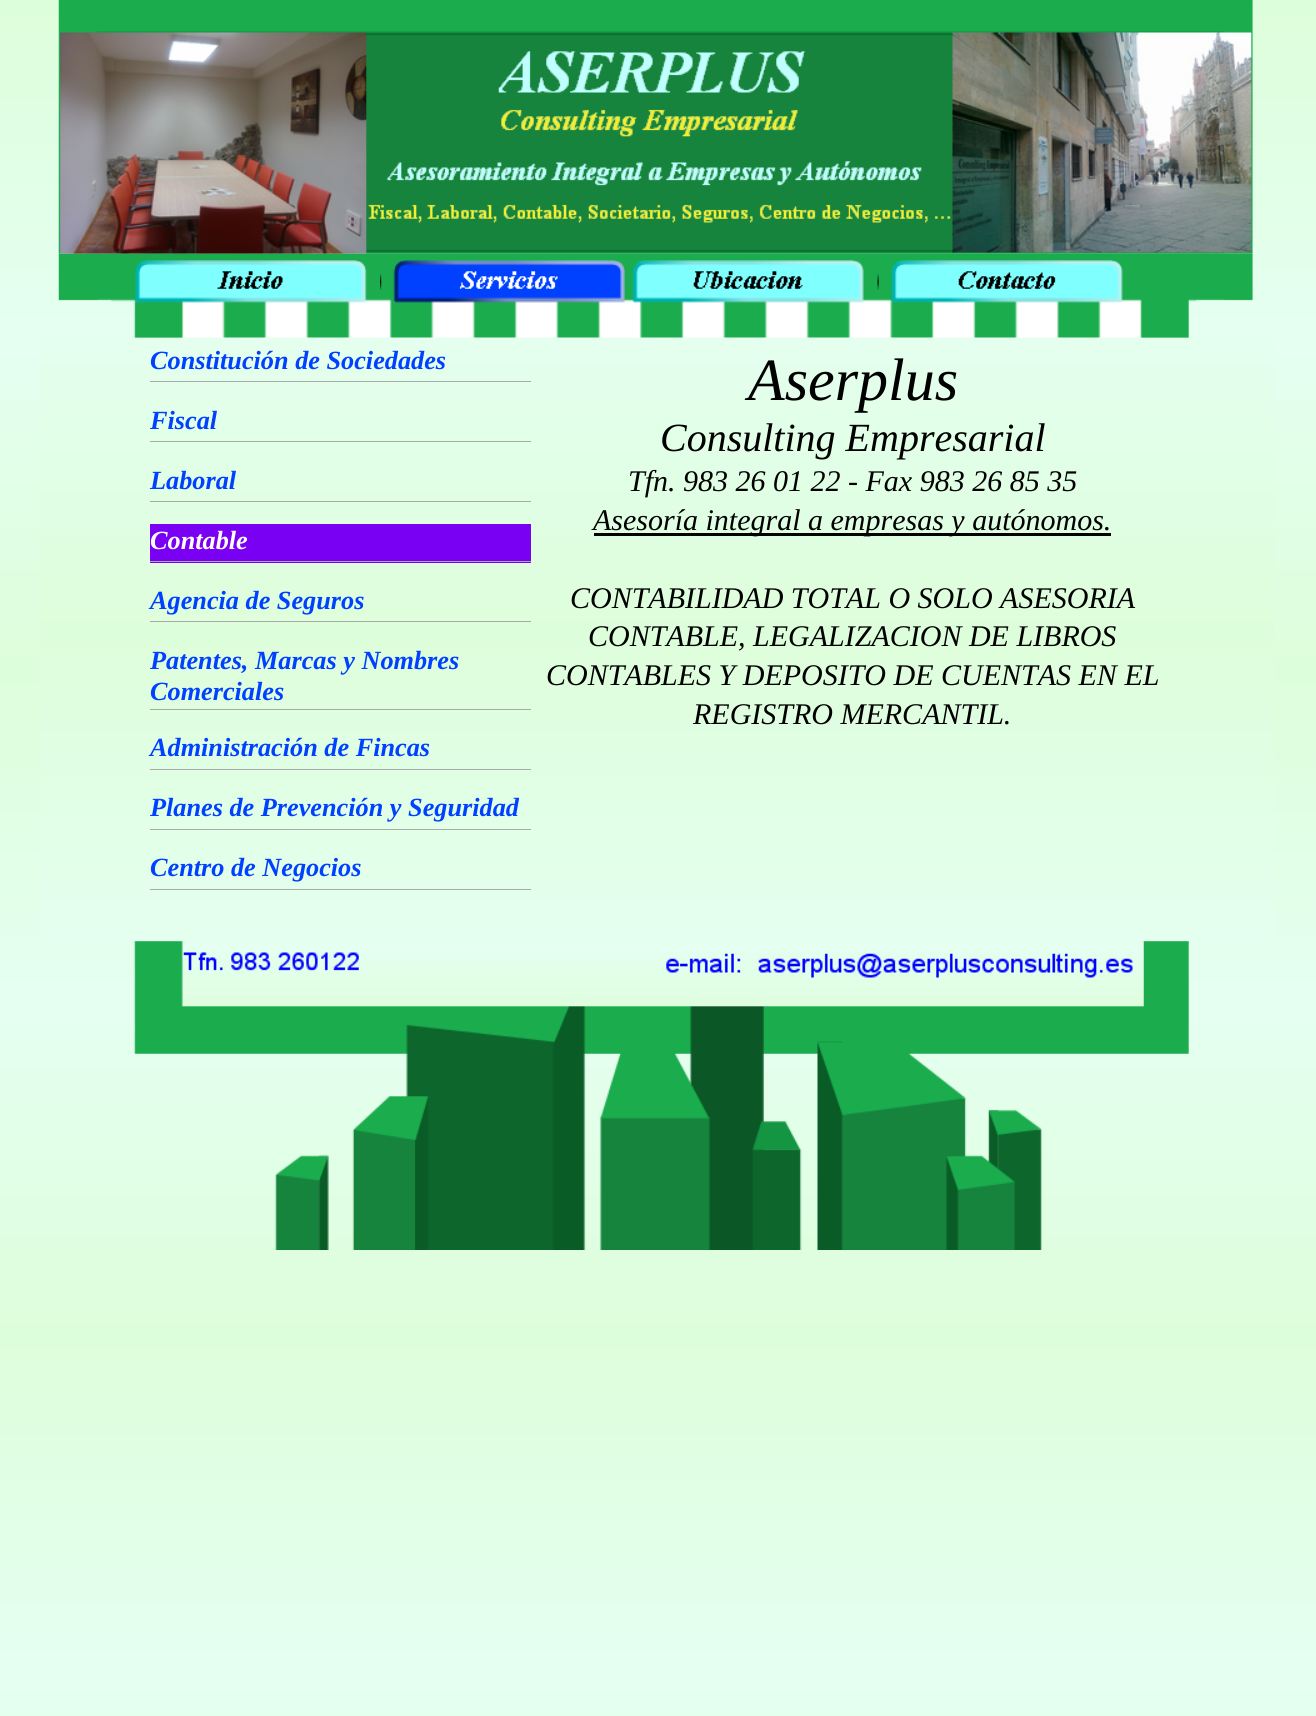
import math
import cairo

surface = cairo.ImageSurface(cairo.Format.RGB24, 1316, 1716)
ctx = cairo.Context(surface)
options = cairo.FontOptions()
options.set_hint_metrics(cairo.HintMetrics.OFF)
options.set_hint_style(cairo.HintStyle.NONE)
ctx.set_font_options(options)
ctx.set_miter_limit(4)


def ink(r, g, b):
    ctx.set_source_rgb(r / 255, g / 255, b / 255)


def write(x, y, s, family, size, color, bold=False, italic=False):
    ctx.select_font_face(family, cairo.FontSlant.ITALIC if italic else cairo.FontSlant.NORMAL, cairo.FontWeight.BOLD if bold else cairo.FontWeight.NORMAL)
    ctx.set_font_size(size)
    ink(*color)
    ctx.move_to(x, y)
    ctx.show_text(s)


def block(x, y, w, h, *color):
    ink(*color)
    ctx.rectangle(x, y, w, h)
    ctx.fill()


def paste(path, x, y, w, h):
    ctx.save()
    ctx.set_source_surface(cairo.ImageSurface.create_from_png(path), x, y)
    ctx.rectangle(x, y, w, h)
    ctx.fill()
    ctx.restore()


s1 = dict(family="Liberation Serif", size=26.25, color=(0, 64, 255), bold=True, italic=True)
s2 = dict(family="Liberation Serif", size=26.25, color=(255, 255, 255), bold=True, italic=True)
s3 = dict(family="Liberation Serif", size=60, color=(0, 0, 0), italic=True)
s4 = dict(family="Liberation Serif", size=40, color=(0, 0, 0), italic=True)
s5 = dict(family="Liberation Serif", size=30, color=(0, 0, 0), italic=True)

ink(255, 255, 255)
ctx.paint()
paste("pic1.png", 0, 0, 1316, 1716)
paste("pic2.png", 58, 0, 1195, 254)
paste("pic10.png", 133, 337, 1056, 605)
paste("pic11.png", 40, 337, 1234, 605)
paste("pic3.png", 58, 253, 1195, 85)
paste("pic4.png", 135, 260, 232, 43)
paste("pic5.png", 380, 273, 2, 17)
paste("pic6.png", 393, 260, 232, 43)
paste("pic7.png", 632, 260, 232, 43)
paste("pic8.png", 877, 273, 2, 17)
paste("pic9.png", 891, 260, 232, 43)
block(150, 381, 381, 1, 169, 169, 169)
write(150, 369, "Constitución de Sociedades", **s1)
block(150, 441, 381, 1, 169, 169, 169)
write(150, 429, "Fiscal", **s1)
block(150, 501, 381, 1, 169, 169, 169)
write(150, 489, "Laboral", **s1)
block(150, 524, 381, 39, 121, 0, 242)
block(150, 561, 381, 1, 169, 169, 169)
write(150, 549, "Contable", **s2)
block(150, 621, 381, 1, 169, 169, 169)
write(150, 609, "Agencia de Seguros", **s1)
block(150, 709, 381, 1, 169, 169, 169)
write(150, 669, "Patentes, Marcas y Nombres", **s1)
write(150, 700, "Comerciales", **s1)
block(150, 769, 381, 1, 169, 169, 169)
write(150, 756, "Administración de Fincas", **s1)
block(150, 829, 381, 1, 169, 169, 169)
write(150, 816, "Planes de Prevención y Seguridad", **s1)
block(150, 889, 381, 1, 169, 169, 169)
write(150, 876, "Centro de Negocios", **s1)
write(748, 400, "Aserplus", **s3)
write(660, 451, "Consulting Empresarial", **s4)
write(628, 491, "Tfn. 983 26 01 22 - Fax 983 26 85 35", **s5)
block(594, 533, 517, 3, 0, 0, 0)
write(593, 530, "Asesoría integral a empresas y autónomos.", **s5)
write(570, 608, "CONTABILIDAD TOTAL O SOLO ASESORIA", **s5)
write(588, 646, "CONTABLE, LEGALIZACION DE LIBROS", **s5)
write(546, 685, "CONTABLES Y DEPOSITO DE CUENTAS EN EL", **s5)
write(693, 724, "REGISTRO MERCANTIL.", **s5)
paste("pic12.png", 133, 941, 1056, 309)
surface.write_to_png("screenshot.png")
